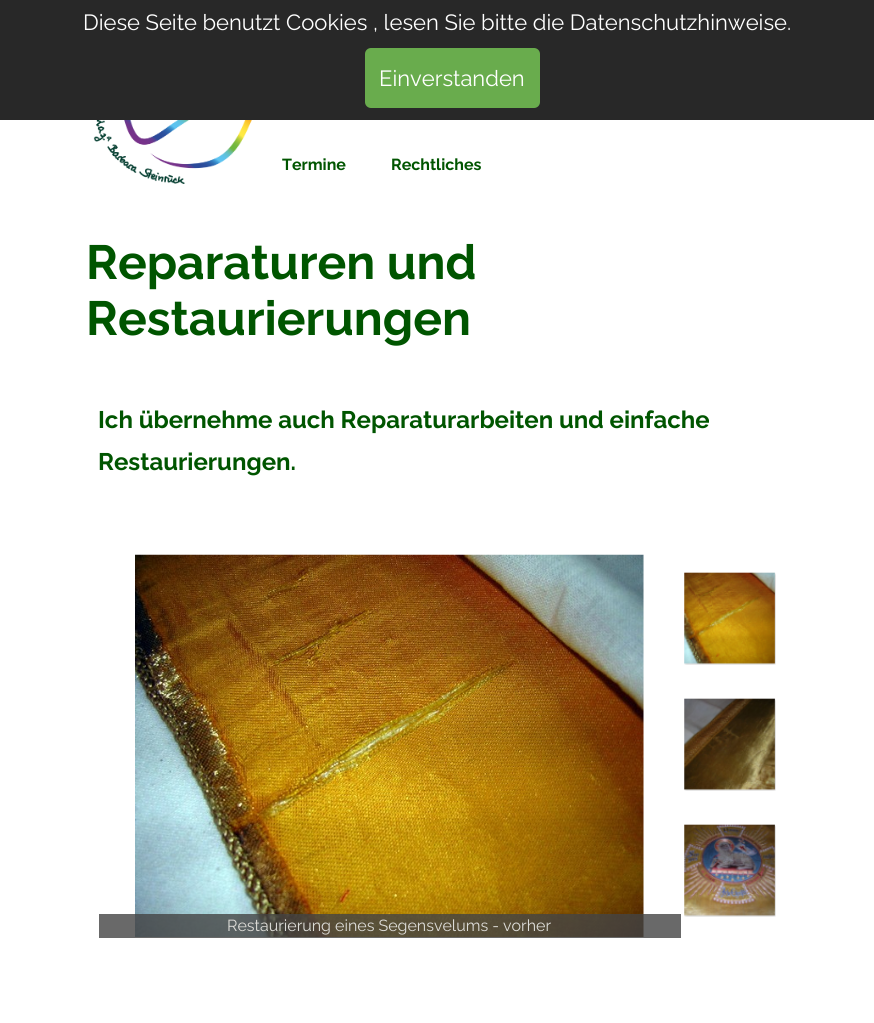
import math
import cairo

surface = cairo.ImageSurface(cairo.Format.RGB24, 874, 1023)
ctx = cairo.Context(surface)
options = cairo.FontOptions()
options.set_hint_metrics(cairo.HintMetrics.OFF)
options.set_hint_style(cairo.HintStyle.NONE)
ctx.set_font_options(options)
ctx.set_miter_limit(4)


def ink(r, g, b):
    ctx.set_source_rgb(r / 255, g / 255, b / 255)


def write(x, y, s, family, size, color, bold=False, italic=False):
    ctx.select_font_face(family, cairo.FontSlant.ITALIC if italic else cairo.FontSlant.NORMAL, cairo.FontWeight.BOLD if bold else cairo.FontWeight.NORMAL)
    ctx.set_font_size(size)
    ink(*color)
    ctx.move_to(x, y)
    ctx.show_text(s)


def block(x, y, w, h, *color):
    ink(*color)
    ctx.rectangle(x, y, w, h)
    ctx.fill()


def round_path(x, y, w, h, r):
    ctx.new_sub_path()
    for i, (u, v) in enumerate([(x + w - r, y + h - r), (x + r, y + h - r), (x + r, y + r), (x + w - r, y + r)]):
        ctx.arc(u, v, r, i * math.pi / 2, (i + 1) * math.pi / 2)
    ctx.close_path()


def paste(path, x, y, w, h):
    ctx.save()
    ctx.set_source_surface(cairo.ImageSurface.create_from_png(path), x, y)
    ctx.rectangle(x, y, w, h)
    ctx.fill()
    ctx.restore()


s1 = dict(family="Raleway", size=22, color=(255, 255, 255))
s2 = dict(family="Raleway", size=16, color=(0, 85, 0), bold=True)
s3 = dict(family="Raleway", size=48, color=(0, 85, 0), bold=True)
s4 = dict(family="Raleway", size=24, color=(0, 85, 0), bold=True)
s5 = dict(family="Raleway", size=16, color=(221, 220, 216))

ink(255, 255, 255)
ctx.paint()
block(0, 0, 874, 120, 40, 40, 40)
write(83, 30, "Diese Seite benutzt Cookies , lesen Sie bitte die Datenschutzhinweise.", **s1)
ink(105, 172, 77)
round_path(365, 48, 175, 60, 6)
ctx.fill()
write(379, 86, "Einverstanden", **s1)
paste("pic1.png", 93, 120, 159, 64)
write(282, 170, "Termine", **s2)
write(391, 170, "Rechtliches", **s2)
write(86, 279, "Reparaturen und", **s3)
write(86, 335, "Restaurierungen", **s3)
write(98, 428, "Ich übernehme auch Reparaturarbeiten und einfache", **s4)
write(98, 470, "Restaurierungen.", **s4)
paste("pic2.png", 684, 572, 92, 93)
paste("pic3.png", 684, 698, 92, 93)
paste("pic4.png", 684, 824, 92, 93)
paste("pic5.png", 135, 554, 509, 383)
ctx.set_source_rgba(0.267, 0.267, 0.267, 0.8)
ctx.rectangle(99, 914, 582, 24)
ctx.fill()
write(227, 931, "Restaurierung eines Segensvelums - vorher", **s5)
surface.write_to_png("screenshot.png")
